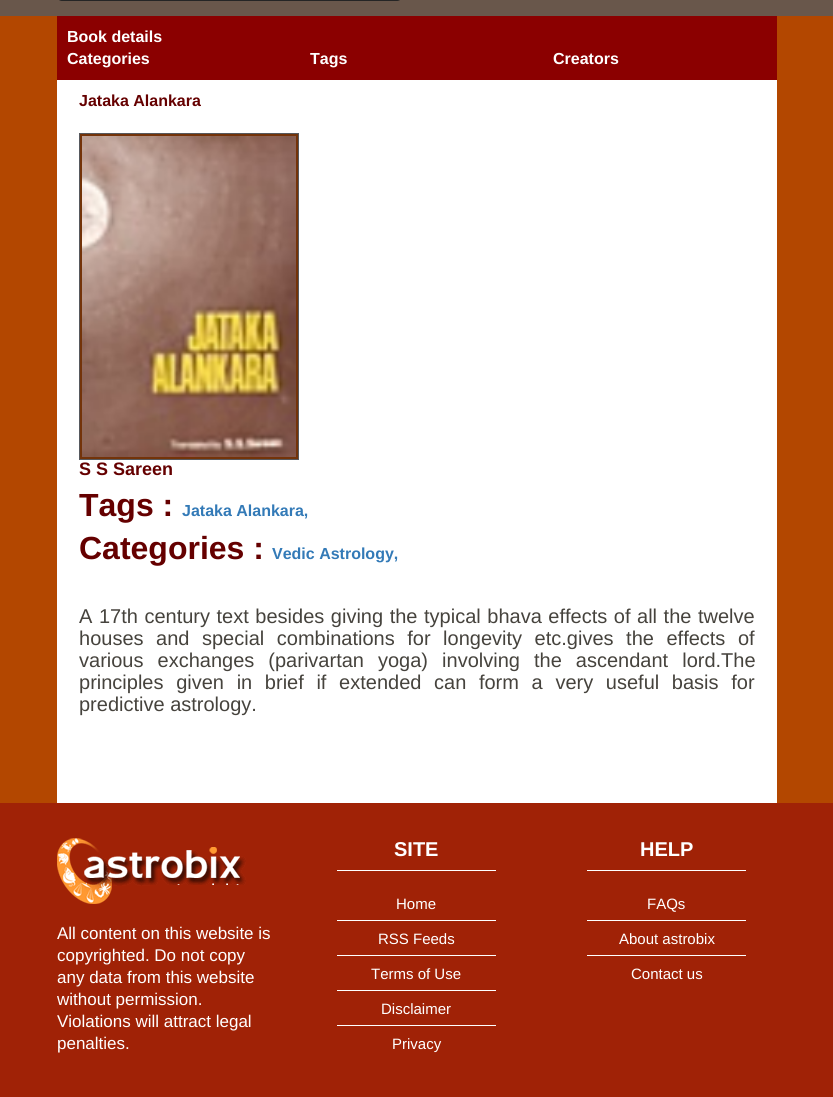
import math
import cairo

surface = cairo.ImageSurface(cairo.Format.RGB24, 833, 1097)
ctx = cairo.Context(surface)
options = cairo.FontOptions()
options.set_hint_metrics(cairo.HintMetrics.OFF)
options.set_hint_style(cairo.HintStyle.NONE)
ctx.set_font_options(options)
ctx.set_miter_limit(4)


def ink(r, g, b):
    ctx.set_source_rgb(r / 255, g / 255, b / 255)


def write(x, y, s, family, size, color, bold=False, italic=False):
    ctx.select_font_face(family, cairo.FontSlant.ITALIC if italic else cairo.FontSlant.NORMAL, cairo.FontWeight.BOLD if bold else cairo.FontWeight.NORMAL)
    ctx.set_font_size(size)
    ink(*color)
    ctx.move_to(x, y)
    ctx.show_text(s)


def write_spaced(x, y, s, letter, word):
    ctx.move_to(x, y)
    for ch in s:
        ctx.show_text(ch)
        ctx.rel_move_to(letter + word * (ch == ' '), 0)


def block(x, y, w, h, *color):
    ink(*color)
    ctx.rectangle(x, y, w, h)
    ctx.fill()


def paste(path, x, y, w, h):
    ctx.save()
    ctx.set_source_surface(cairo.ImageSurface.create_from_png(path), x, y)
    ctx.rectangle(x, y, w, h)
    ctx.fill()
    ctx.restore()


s1 = dict(family="Liberation Sans", size=16, color=(255, 255, 255), bold=True)
s2 = dict(family="Liberation Sans", size=16, color=(101, 0, 0), bold=True)
s3 = dict(family="Liberation Sans", size=18, color=(101, 0, 0), bold=True)
s4 = dict(family="Liberation Sans", size=32, color=(101, 0, 0), bold=True)
s5 = dict(family="Liberation Sans", size=16, color=(51, 122, 183), bold=True)
s6 = dict(family="Liberation Sans", size=20, color=(70, 67, 61))
s7 = dict(family="Liberation Sans", size=17, color=(255, 255, 255))
s8 = dict(family="Liberation Sans", size=20, color=(255, 255, 255), bold=True)
s9 = dict(family="Liberation Sans", size=15, color=(255, 255, 255))

ink(105, 87, 75)
ctx.paint()
paste("pic1.png", 59, 0, 341, 1)
block(0, 16, 833, 787, 179, 71, 0)
block(57, 80, 720, 723, 255, 255, 255)
block(57, 16, 720, 64, 139, 0, 0)
write(67, 42, "Book details", **s1)
write(67, 64, "Categories", **s1)
write(310, 64, "Tags", **s1)
write(553, 64, "Creators", **s1)
write(79, 106, "Jataka Alankara", **s2)
ink(115, 51, 9)
ctx.rectangle(79.5, 133.5, 219, 326)
ctx.fill_preserve()
ink(86, 89, 94)
ctx.set_line_width(1)
ctx.stroke()
paste("pic2.png", 82, 136, 214, 321)
write(79, 475, "S S Sareen", **s3)
write(79, 516, "Tags :", **s4)
write(182, 516, "Jataka Alankara,", **s5)
write(79, 559, "Categories :", **s4)
write(272, 559, "Vedic Astrology,", **s5)
ctx.select_font_face("Liberation Sans")
ctx.set_font_size(20)
ink(70, 67, 61)
write_spaced(79, 623, "A 17th century text besides giving the typical bhava effects of all the twelve", 0, 1)
write_spaced(79, 645, "houses and special combinations for longevity etc.gives the effects of", 0, 7)
write_spaced(79, 667, "various exchanges (parivartan yoga) involving the ascendant lord.The", 0, 8.5)
write_spaced(79, 689, "principles given in brief if extended can form a very useful basis for", 0, 7.1)
write(79, 711, "predictive astrology.", **s6)
block(0, 803, 833, 294, 160, 34, 6)
paste("pic3.png", 57, 838, 189, 66)
write(57, 939, "All content on this website is", **s7)
write(57, 961, "copyrighted. Do not copy", **s7)
write(57, 983, "any data from this website", **s7)
write(57, 1005, "without permission.", **s7)
write(57, 1027, "Violations will attract legal", **s7)
write(57, 1049, "penalties.", **s7)
block(337, 870, 159, 1, 255, 255, 255)
write(394, 856, "SITE", **s8)
block(337, 920, 159, 1, 255, 255, 255)
write(396, 909, "Home", **s9)
block(337, 955, 159, 1, 255, 255, 255)
write(378, 944, "RSS Feeds", **s9)
block(337, 990, 159, 1, 255, 255, 255)
write(371, 979, "Terms of Use", **s9)
block(337, 1025, 159, 1, 255, 255, 255)
write(381, 1014, "Disclaimer", **s9)
write(392, 1049, "Privacy", **s9)
block(587, 870, 159, 1, 255, 255, 255)
write(640, 856, "HELP", **s8)
block(587, 920, 159, 1, 255, 255, 255)
write(647, 909, "FAQs", **s9)
block(587, 955, 159, 1, 255, 255, 255)
write(619, 944, "About astrobix", **s9)
write(631, 979, "Contact us", **s9)
surface.write_to_png("screenshot.png")
